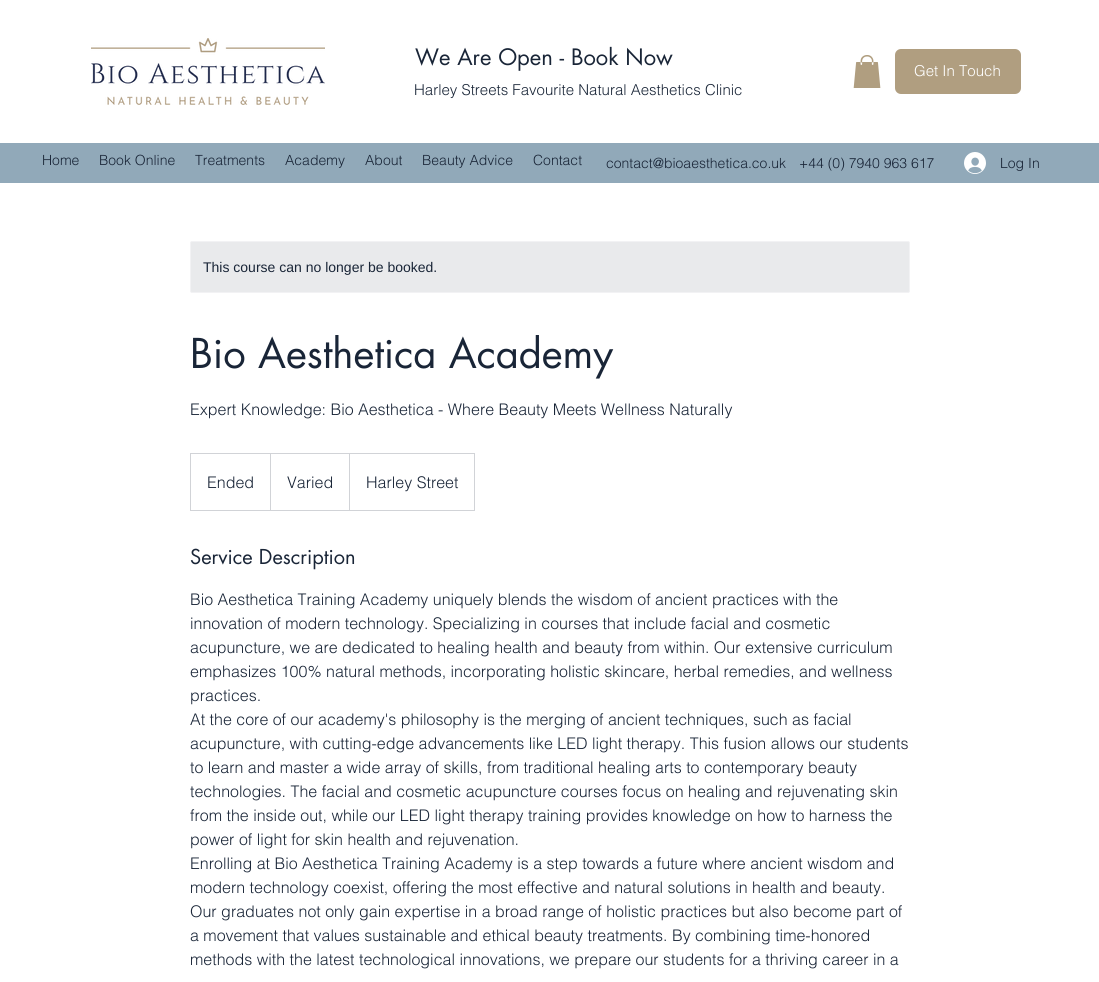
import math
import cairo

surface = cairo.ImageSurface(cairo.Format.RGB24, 1099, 982)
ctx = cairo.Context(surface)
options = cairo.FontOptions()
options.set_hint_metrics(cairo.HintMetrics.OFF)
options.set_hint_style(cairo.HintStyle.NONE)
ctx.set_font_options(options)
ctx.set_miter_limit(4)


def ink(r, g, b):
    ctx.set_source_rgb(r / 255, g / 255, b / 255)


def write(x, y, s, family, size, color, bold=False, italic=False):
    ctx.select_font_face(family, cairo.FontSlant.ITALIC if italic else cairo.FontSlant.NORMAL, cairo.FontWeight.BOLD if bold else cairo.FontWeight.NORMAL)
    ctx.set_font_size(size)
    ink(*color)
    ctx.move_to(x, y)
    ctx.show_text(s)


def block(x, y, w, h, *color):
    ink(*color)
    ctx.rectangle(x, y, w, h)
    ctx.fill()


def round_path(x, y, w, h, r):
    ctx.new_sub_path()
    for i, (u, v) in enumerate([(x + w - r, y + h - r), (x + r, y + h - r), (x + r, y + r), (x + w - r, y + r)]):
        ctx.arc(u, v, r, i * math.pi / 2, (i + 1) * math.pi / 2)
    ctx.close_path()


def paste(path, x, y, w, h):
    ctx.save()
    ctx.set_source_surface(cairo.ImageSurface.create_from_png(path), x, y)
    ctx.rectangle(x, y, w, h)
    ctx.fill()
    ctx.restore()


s1 = dict(family="futura", size=22, color=(25, 37, 55))
s2 = dict(family="helvetica Light", size=15, color=(25, 37, 55))
s3 = dict(family="helvetica Light", size=15, color=(255, 255, 255))
s4 = dict(family="helvetica Light", size=14, color=(25, 37, 55))
s5 = dict(family="Liberation Sans", size=14, color=(25, 37, 55))
s6 = dict(family="futura", size=40, color=(25, 37, 55))
s7 = dict(family="helvetica Light", size=16, color=(25, 37, 55))
s8 = dict(family="futura", size=20, color=(25, 37, 55))

ink(255, 255, 255)
ctx.paint()
paste("pic1.png", 91, 38, 234, 67)
write(415, 65, "We Are Open - Book Now", **s1)
write(414, 95, "Harley Streets Favourite Natural Aesthetics Clinic", **s2)
paste("pic2.png", 853, 55, 28, 33)
ink(176, 158, 128)
round_path(895, 49, 126, 45, 6)
ctx.fill()
write(914, 76, "Get In Touch", **s3)
block(0, 143, 1099, 40, 145, 169, 185)
write(42, 165, "Home", **s4)
write(99, 165, "Book Online", **s4)
write(195, 165, "Treatments", **s4)
write(285, 165, "Academy", **s4)
write(365, 165, "About", **s4)
write(422, 165, "Beauty Advice", **s4)
write(533, 165, "Contact", **s4)
write(606, 168, "contact@bioaesthetica.co.uk", **s4)
write(799, 168, "+44 (0) 7940 963 617", **s4)
paste("pic3.png", 964, 152, 22, 22)
write(1000, 168, "Log In", **s4)
ink(233, 234, 236)
round_path(190.5, 241.5, 719, 51, 1.5)
ctx.fill_preserve()
ink(242, 242, 244)
ctx.set_line_width(1)
ctx.stroke()
write(203, 272, "This course can no longer be booked.", **s5)
write(190, 368, "Bio Aesthetica Academy", **s6)
write(190, 415, "Expert Knowledge: Bio Aesthetica - Where Beauty Meets Wellness Naturally", **s7)
ctx.rectangle(190.5, 453.5, 284, 57)
ink(209, 211, 215)
ctx.stroke()
write(207, 488, "Ended", **s7)
ink(209, 211, 215)
ctx.new_path()
ctx.move_to(270, 510)
ctx.line_to(270, 453)
ctx.line_to(271, 454)
ctx.line_to(271, 510)
ctx.close_path()
ctx.fill()
write(287, 488, "Varied", **s7)
ink(209, 211, 215)
ctx.new_path()
ctx.move_to(349, 510)
ctx.line_to(349, 453)
ctx.line_to(350, 454)
ctx.line_to(350, 510)
ctx.close_path()
ctx.fill()
write(366, 488, "Harley Street", **s7)
write(190, 564, "Service Description", **s8)
write(190, 605, "Bio Aesthetica Training Academy uniquely blends the wisdom of ancient practices with the", **s7)
write(190, 629, "innovation of modern technology. Specializing in courses that include facial and cosmetic", **s7)
write(190, 653, "acupuncture, we are dedicated to healing health and beauty from within. Our extensive curriculum", **s7)
write(190, 677, "emphasizes 100% natural methods, incorporating holistic skincare, herbal remedies, and wellness", **s7)
write(190, 701, "practices.", **s7)
write(190, 725, "At the core of our academy's philosophy is the merging of ancient techniques, such as facial", **s7)
write(190, 749, "acupuncture, with cutting-edge advancements like LED light therapy. This fusion allows our students", **s7)
write(190, 773, "to learn and master a wide array of skills, from traditional healing arts to contemporary beauty", **s7)
write(190, 797, "technologies. The facial and cosmetic acupuncture courses focus on healing and rejuvenating skin", **s7)
write(190, 821, "from the inside out, while our LED light therapy training provides knowledge on how to harness the", **s7)
write(190, 845, "power of light for skin health and rejuvenation.", **s7)
write(190, 869, "Enrolling at Bio Aesthetica Training Academy is a step towards a future where ancient wisdom and", **s7)
write(190, 893, "modern technology coexist, offering the most effective and natural solutions in health and beauty.", **s7)
write(190, 917, "Our graduates not only gain expertise in a broad range of holistic practices but also become part of", **s7)
write(190, 941, "a movement that values sustainable and ethical beauty treatments. By combining time-honored", **s7)
write(190, 965, "methods with the latest technological innovations, we prepare our students for a thriving career in a", **s7)
surface.write_to_png("screenshot.png")
